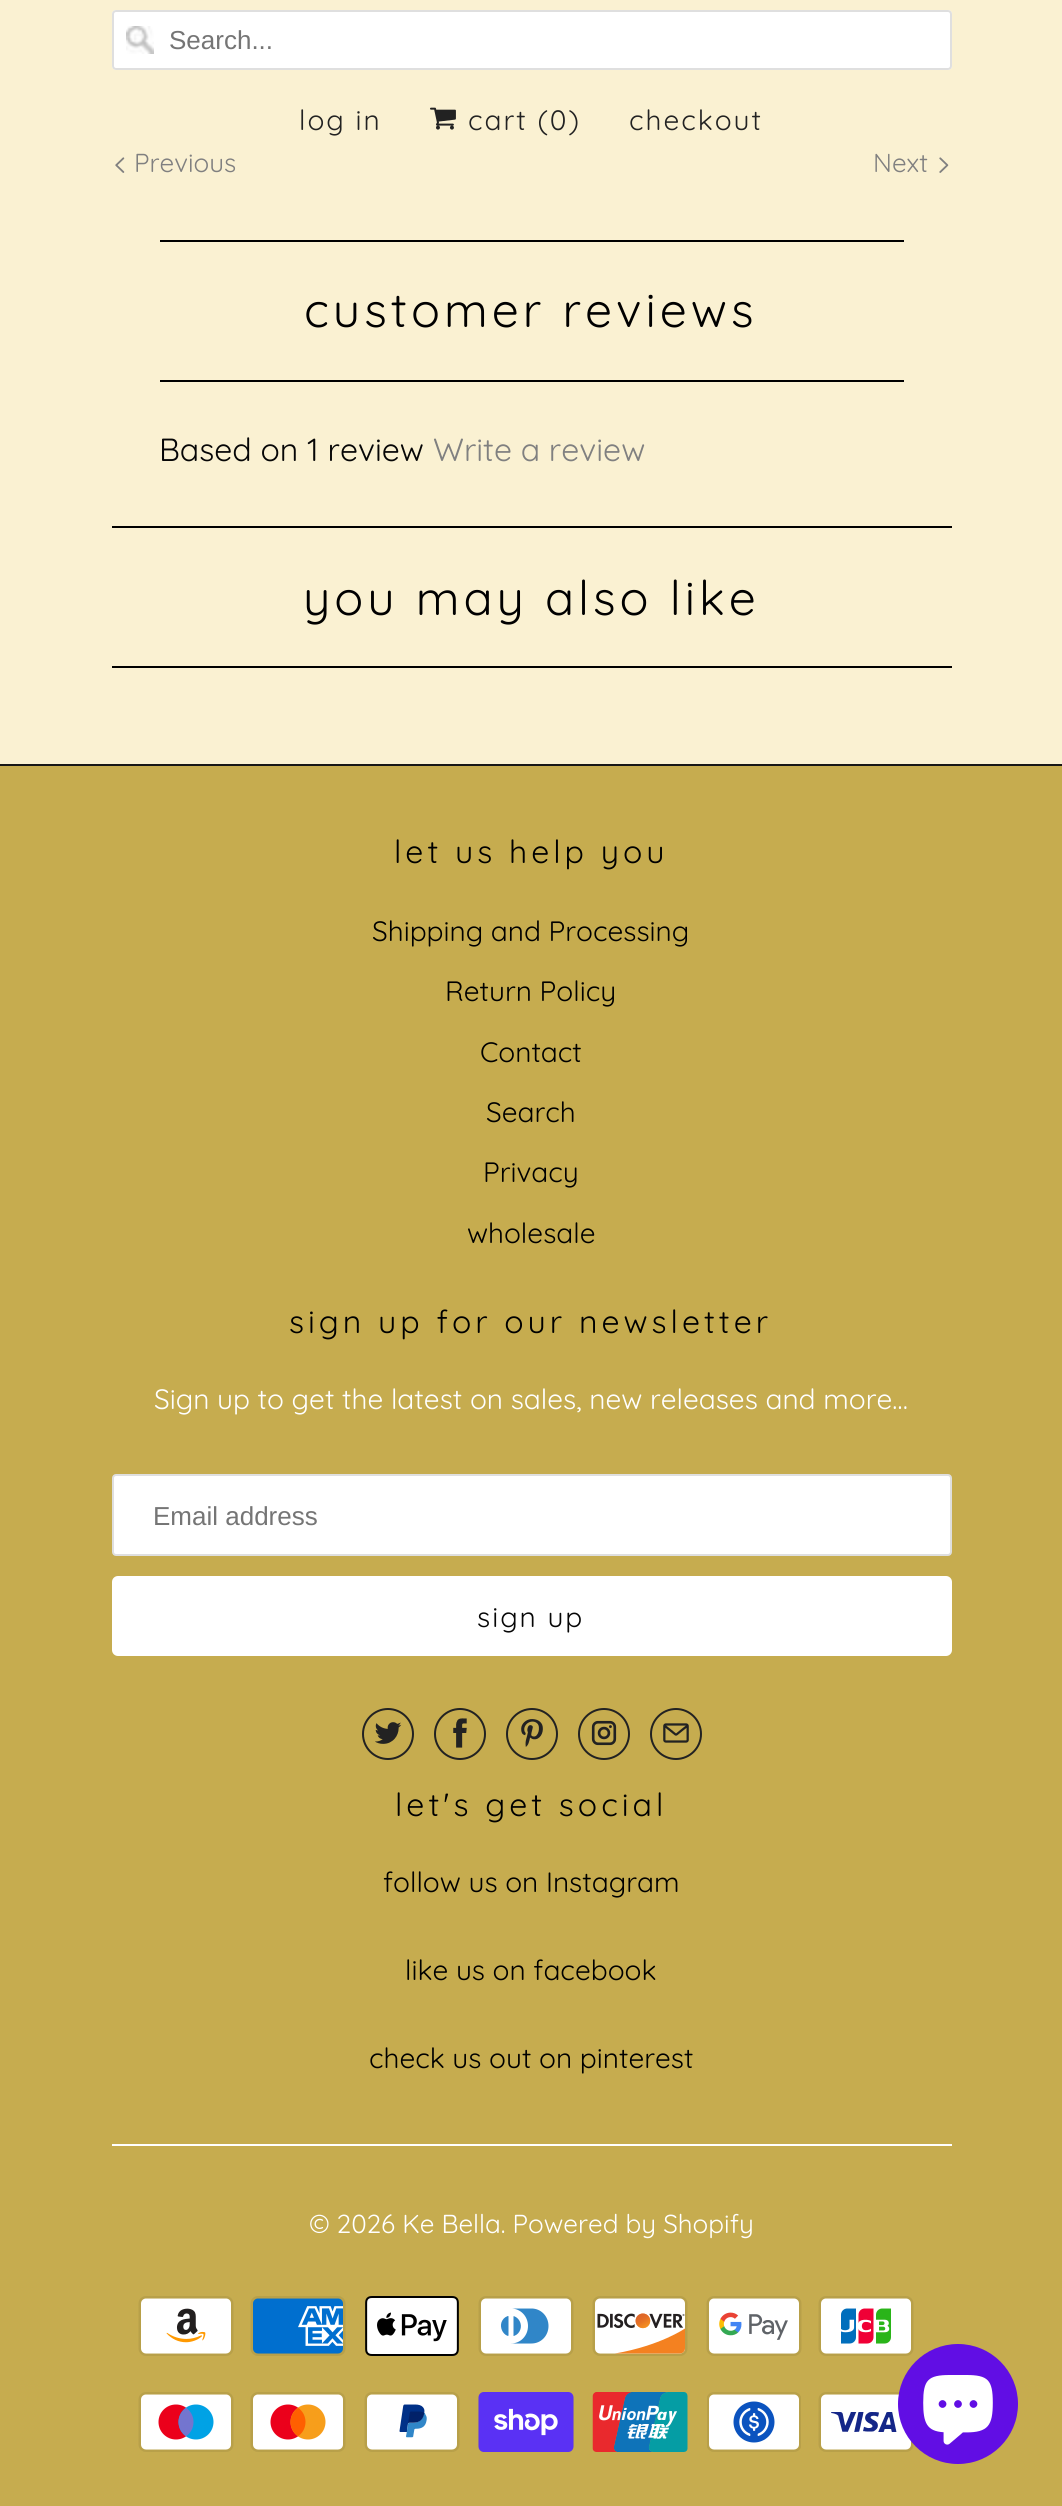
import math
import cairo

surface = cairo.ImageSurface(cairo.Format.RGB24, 1062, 2506)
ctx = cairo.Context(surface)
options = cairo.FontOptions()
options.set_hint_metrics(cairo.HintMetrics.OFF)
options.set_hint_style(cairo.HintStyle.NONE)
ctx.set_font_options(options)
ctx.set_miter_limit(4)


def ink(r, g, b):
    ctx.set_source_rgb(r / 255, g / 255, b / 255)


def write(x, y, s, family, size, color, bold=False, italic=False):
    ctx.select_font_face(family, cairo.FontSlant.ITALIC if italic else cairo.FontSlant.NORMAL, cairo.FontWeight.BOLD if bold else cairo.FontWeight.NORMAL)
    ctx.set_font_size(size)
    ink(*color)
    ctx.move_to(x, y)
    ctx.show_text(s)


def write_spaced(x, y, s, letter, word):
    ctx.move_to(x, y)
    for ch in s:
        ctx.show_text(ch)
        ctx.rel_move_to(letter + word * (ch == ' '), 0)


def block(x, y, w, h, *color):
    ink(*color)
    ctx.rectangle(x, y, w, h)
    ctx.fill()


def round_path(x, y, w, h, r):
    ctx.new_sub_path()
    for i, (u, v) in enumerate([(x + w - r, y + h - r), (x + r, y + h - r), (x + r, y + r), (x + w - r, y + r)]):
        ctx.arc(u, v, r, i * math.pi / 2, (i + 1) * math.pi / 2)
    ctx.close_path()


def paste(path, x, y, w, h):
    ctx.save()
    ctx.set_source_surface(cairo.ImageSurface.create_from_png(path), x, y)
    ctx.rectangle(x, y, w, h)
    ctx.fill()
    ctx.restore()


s1 = dict(family="Liberation Sans", size=26, color=(117, 117, 117))
s2 = dict(family="Quicksand", size=26, color=(128, 128, 128))
s3 = dict(family="Quicksand", size=32, color=(6, 6, 6))
s4 = dict(family="Quicksand", size=32, color=(128, 128, 128))
s5 = dict(family="Quicksand", size=28, color=(0, 0, 0))
s6 = dict(family="Quicksand", size=28, color=(255, 255, 255))
s7 = dict(family="Quicksand", size=26, color=(255, 255, 255))

ink(250, 241, 210)
ctx.paint()
ink(255, 255, 255)
round_path(112, 10, 840, 60, 4)
ctx.fill()
paste("pic1.png", 126, 26, 28, 28)
round_path(113, 11, 838, 58, 3)
ink(223, 223, 223)
ctx.stroke()
write(169, 49, "Search...", **s1)
ctx.select_font_face("Quicksand")
ctx.set_font_size(28)
ink(34, 34, 34)
write_spaced(299, 130, "log in", 2, 0)
paste("pic2.png", 430, 107, 26, 23)
write_spaced(468, 130, "cart (0)", 2, 0)
write_spaced(629, 130, "checkout", 2, 0)
paste("pic3.png", 115, 157, 10, 16)
write(134, 172, "Previous", **s2)
write(873, 172, "Next", **s2)
paste("pic4.png", 939, 157, 10, 16)
block(160, 240, 744, 2, 0, 0, 0)
block(160, 380, 744, 2, 0, 0, 0)
ctx.set_font_size(48)
write_spaced(304, 327, "customer reviews", 4, 0)
write(159, 461, "Based on 1 review", **s3)
write(433, 461, "Write a review", **s4)
block(112, 526, 840, 2, 0, 0, 0)
block(112, 666, 840, 2, 0, 0, 0)
ctx.set_font_size(48)
write_spaced(303, 615, "you may also like", 4, 0)
block(0, 766, 1062, 1740, 198, 172, 79)
block(0, 764, 1062, 2, 22, 22, 22)
ctx.set_font_size(32)
ink(0, 0, 0)
write_spaced(394, 863, "let us help you", 4, 0)
write(372, 941, "Shipping and Processing", **s5)
write(445, 1001, "Return Policy", **s5)
write(480, 1062, "Contact", **s5)
write(486, 1122, "Search", **s5)
write(483, 1182, "Privacy", **s5)
write(467, 1243, "wholesale", **s5)
ctx.set_font_size(32)
write_spaced(289, 1333, "sign up for our newsletter", 4, 0)
write(154, 1409, "Sign up to get the latest on sales, new releases and more…", **s6)
round_path(113, 1475, 838, 80, 3)
ctx.fill_preserve()
ink(223, 223, 223)
ctx.stroke()
write(153, 1525, "Email address", **s1)
ink(255, 255, 255)
round_path(113, 1577, 838, 78, 5)
ctx.fill_preserve()
ctx.stroke()
ctx.select_font_face("Quicksand")
ctx.set_font_size(28)
ink(6, 6, 6)
write_spaced(477, 1627, "sign up", 2, 0)
ctx.new_path()
ctx.arc(388, 1734, 25, 0, 2 * math.pi)
ink(34, 34, 34)
ctx.stroke()
paste("pic5.png", 375, 1722, 27, 22)
ctx.arc(460, 1734, 25, 0, 2 * math.pi)
ctx.stroke()
paste("pic6.png", 453, 1718, 14, 30)
ctx.arc(532, 1734, 25, 0, 2 * math.pi)
ctx.stroke()
paste("pic7.png", 521, 1719, 22, 28)
ctx.arc(604, 1734, 25, 0, 2 * math.pi)
ctx.stroke()
paste("pic8.png", 591, 1720, 26, 26)
ctx.arc(676, 1734, 25, 0, 2 * math.pi)
ctx.stroke()
paste("pic9.png", 663, 1723, 26, 20)
ctx.set_font_size(32)
ink(0, 0, 0)
write_spaced(395, 1816, "let's get social", 4, 0)
write(383, 1892, "follow us on Instagram", **s5)
write(405, 1980, "like us on facebook", **s5)
write(369, 2068, "check us out on pinterest", **s5)
block(112, 2144, 840, 2, 255, 255, 255)
write(309, 2233, "© 2026 Ke Bella. Powered by Shopify", **s7)
paste("pic10.png", 138, 2296, 96, 60)
paste("pic11.png", 250, 2296, 96, 60)
paste("pic12.png", 365, 2296, 94, 60)
paste("pic13.png", 478, 2296, 96, 60)
paste("pic14.png", 592, 2296, 96, 60)
paste("pic15.png", 706, 2296, 96, 60)
paste("pic16.png", 818, 2296, 96, 60)
paste("pic17.png", 138, 2392, 96, 60)
paste("pic18.png", 250, 2392, 96, 60)
paste("pic19.png", 364, 2392, 96, 60)
paste("pic20.png", 478, 2392, 96, 60)
paste("pic21.png", 592, 2392, 96, 60)
paste("pic22.png", 707, 2392, 94, 60)
paste("pic23.png", 818, 2392, 96, 60)
ink(97, 14, 228)
ctx.arc(958, 2404, 60, 0, 2 * math.pi)
ctx.fill()
paste("pic24.png", 923, 2375, 70, 70)
surface.write_to_png("screenshot.png")
